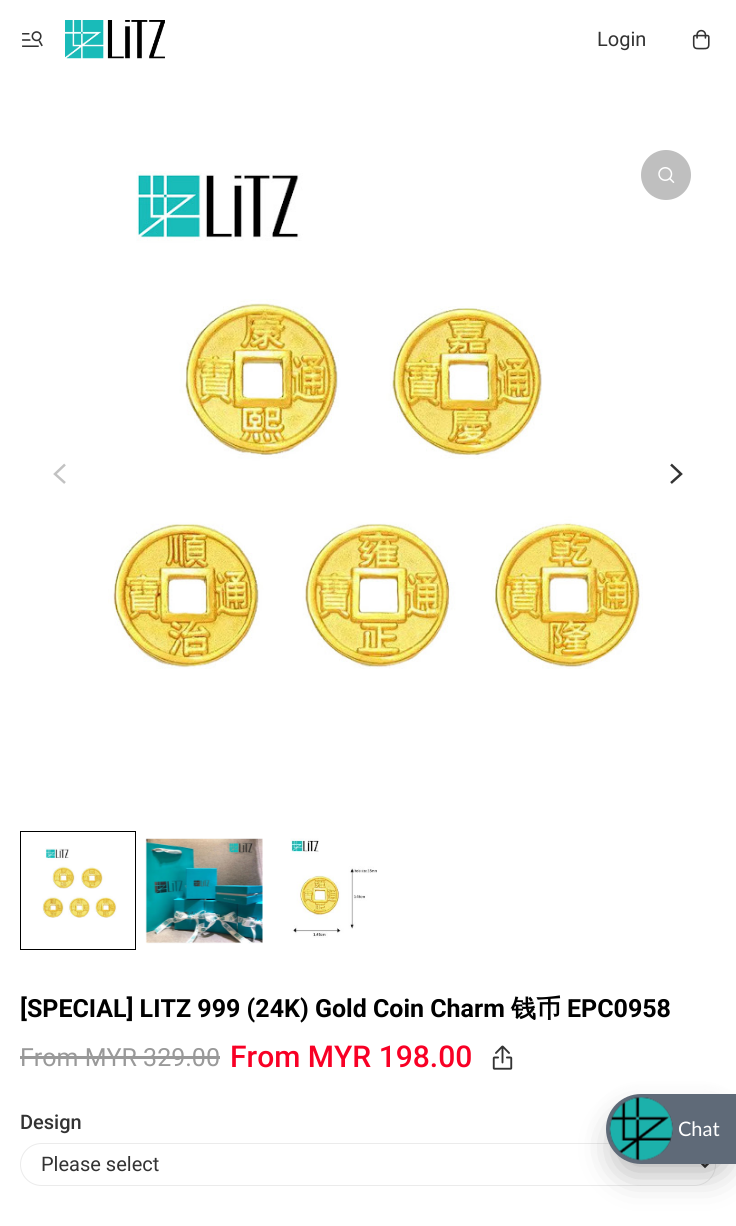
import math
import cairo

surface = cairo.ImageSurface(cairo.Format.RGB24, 736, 1226)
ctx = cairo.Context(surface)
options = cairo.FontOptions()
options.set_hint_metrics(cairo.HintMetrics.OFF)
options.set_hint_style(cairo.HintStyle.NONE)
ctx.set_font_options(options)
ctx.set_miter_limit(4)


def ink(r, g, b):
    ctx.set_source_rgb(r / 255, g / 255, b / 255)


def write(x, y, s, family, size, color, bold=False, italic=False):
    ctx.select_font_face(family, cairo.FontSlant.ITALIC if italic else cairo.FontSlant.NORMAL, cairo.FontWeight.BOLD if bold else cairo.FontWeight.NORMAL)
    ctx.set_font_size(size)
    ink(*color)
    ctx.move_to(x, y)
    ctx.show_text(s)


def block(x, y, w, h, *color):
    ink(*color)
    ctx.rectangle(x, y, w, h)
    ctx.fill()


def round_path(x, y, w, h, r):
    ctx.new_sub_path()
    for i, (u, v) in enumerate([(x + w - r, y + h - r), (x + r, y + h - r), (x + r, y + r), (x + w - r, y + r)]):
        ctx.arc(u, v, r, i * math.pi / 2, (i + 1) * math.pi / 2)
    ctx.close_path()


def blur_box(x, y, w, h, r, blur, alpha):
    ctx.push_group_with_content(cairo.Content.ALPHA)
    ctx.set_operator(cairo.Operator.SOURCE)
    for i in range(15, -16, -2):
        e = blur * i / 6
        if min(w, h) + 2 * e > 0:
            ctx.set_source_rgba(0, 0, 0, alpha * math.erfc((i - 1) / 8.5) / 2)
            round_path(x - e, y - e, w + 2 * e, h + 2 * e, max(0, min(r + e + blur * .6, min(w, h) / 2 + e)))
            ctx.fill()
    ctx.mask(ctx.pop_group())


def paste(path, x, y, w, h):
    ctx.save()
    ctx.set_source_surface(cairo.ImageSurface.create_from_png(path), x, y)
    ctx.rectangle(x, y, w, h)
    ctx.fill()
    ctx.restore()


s1 = dict(family="Roboto", size=20, color=(51, 51, 51))
s2 = dict(family="Roboto", size=25, color=(0, 0, 0), bold=True)
s3 = dict(family="WenQuanYi Zen Hei", size=25, color=(0, 0, 0), bold=True)
s4 = dict(family="Roboto", size=25, color=(153, 153, 153))
s5 = dict(family="Roboto Medium", size=30, color=(248, 0, 37))
s6 = dict(family="Roboto Medium", size=20, color=(51, 51, 51))
s7 = dict(family="Lato", size=20, color=(255, 255, 255))

ink(255, 255, 255)
ctx.paint()
paste("pic1.png", 22, 31, 21, 16)
paste("pic2.png", 65, 20, 100, 39)
write(597, 46, "Login", **s1)
paste("pic3.png", 692, 29, 18, 21)
ctx.new_path()
ctx.move_to(65, 464.5)
ctx.line_to(55, 474)
ctx.line_to(65, 483)
ink(194, 194, 194)
ctx.set_line_width(2.5)
ctx.stroke()
paste("pic4.png", 108, 171, 535, 498)
ink(191, 191, 191)
ctx.arc(666, 175, 25, 0, 2 * math.pi)
ctx.fill()
paste("pic5.png", 658, 167, 17, 16)
ctx.new_path()
ctx.move_to(671, 464.5)
ctx.line_to(681, 474)
ctx.line_to(671, 483)
ink(51, 51, 51)
ctx.stroke()
ctx.rectangle(20.5, 831.5, 115, 118)
ink(0, 0, 0)
ctx.set_line_width(1)
ctx.stroke()
paste("pic6.png", 42, 848, 75, 70)
paste("pic7.png", 145, 838, 118, 106)
paste("pic8.png", 290, 838, 87, 100)
write(20, 1017, "[SPECIAL] LITZ 999 (24K) Gold Coin Charm", **s2)
write(511, 1017, "钱币", **s3)
write(567, 1017, "EPC0958", **s2)
write(20, 1066, "From MYR 329.00", **s4)
block(20, 1056, 200, 3, 153, 153, 153)
write(230, 1067, "From MYR 198.00", **s5)
paste("pic9.png", 492, 1045, 21, 25)
write(20, 1129, "Design", **s6)
round_path(20.5, 1143.5, 695, 42, 21)
ink(235, 235, 235)
ctx.stroke()
ctx.new_path()
ctx.move_to(700, 1161.5)
ctx.line_to(705, 1166.5)
ctx.line_to(710, 1161.5)
ink(51, 51, 51)
ctx.set_line_width(2.5)
ctx.stroke()
write(41, 1171, "Please select", **s1)
ink(0, 0, 0)
blur_box(619, 1125, 105, 45, 22.5, 19, 0.3)
blur_box(606, 1100, 130, 70, 35, 12.5, 0.05)
ink(95, 106, 120)
ctx.new_path()
ctx.move_to(641, 1094)
ctx.line_to(736, 1094)
ctx.line_to(736, 1164)
ctx.line_to(641, 1164)
ctx.curve_to(621.5, 1164, 606, 1148.5, 606, 1129)
ctx.curve_to(606, 1109.5, 621.5, 1094, 641, 1094)
ctx.close_path()
ctx.fill()
paste("pic10.png", 609, 1097, 64, 64)
write(678, 1136, "Chat", **s7)
surface.write_to_png("screenshot.png")
